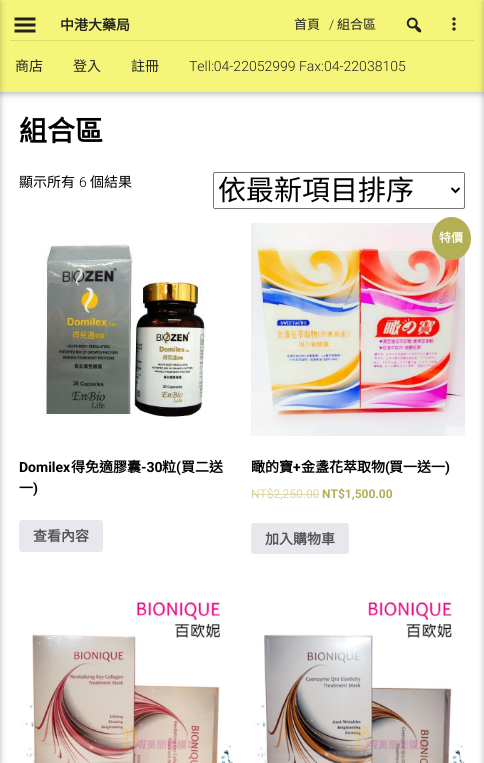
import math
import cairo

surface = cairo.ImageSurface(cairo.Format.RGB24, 484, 763)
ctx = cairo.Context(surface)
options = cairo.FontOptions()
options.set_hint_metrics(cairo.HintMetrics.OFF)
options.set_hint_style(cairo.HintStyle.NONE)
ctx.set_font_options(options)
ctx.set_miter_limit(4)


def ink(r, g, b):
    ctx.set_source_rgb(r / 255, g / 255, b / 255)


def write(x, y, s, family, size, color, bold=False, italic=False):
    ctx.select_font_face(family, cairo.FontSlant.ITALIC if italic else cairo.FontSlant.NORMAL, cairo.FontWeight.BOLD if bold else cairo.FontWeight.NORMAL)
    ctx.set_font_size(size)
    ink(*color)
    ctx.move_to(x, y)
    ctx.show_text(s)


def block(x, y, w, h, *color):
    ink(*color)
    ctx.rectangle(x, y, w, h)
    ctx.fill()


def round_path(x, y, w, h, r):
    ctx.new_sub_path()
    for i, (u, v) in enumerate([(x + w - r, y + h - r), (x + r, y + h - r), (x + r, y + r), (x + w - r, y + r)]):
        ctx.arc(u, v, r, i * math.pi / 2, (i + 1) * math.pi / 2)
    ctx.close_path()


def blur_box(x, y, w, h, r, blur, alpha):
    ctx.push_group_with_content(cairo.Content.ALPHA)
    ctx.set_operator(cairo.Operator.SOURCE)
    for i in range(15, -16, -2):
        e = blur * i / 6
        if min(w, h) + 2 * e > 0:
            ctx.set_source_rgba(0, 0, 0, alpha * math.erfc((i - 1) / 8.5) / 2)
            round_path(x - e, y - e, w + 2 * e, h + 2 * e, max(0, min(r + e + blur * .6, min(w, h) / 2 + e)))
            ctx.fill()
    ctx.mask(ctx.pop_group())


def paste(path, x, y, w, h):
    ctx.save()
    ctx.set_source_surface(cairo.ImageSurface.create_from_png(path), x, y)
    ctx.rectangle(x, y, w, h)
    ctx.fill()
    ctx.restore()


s1 = dict(family="Noto Sans CJK TC", size=14, color=(34, 34, 34), bold=True)
s2 = dict(family="Noto Sans CJK TC", size=13, color=(34, 34, 34))
s3 = dict(family="Roboto Light", size=13, color=(34, 34, 34))
s4 = dict(family="Noto Sans CJK TC", size=14, color=(34, 34, 34))
s5 = dict(family="Roboto Light", size=14, color=(34, 34, 34))
s6 = dict(family="Noto Sans CJK TC", size=28, color=(0, 0, 0), bold=True)
s7 = dict(family="Noto Sans CJK TC", size=14, color=(0, 0, 0))
s8 = dict(family="Roboto Light", size=14, color=(0, 0, 0))
s9 = dict(family="Noto Sans CJK TC", size=28, color=(0, 0, 0))
s10 = dict(family="Roboto", size=14, color=(0, 0, 0), bold=True)
s11 = dict(family="Noto Sans CJK TC", size=14, color=(0, 0, 0), bold=True)
s12 = dict(family="Noto Sans CJK TC", size=14, color=(81, 81, 81), bold=True)
s13 = dict(family="Noto Sans CJK TC", size=12, color=(255, 255, 255), bold=True)
s14 = dict(family="Roboto", size=12, color=(217, 215, 170))
s15 = dict(family="Roboto", size=12, color=(179, 175, 84), bold=True)

ink(255, 255, 255)
ctx.paint()
ink(0, 0, 0)
blur_box(0, 2, 484, 92, 0, 5, 0.12)
blur_box(0, 2, 484, 92, 0, 2.5, 0.16)
block(0, 0, 484, 92, 245, 245, 122)
paste("pic1.png", 14, 17, 22, 16)
block(10, 40, 464, 1, 221, 221, 110)
ink(0, 0, 0)
blur_box(-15, 2, 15, 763, 0, 5, 0.12)
blur_box(-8, 2, 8, 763, 0, 2.5, 0.16)
write(60, 30, "中港大藥局", **s1)
write(294, 29, "首頁", **s2)
write(329, 29, "/", **s3)
write(337, 29, "組合區", **s2)
paste("pic2.png", 406, 17, 16, 16)
paste("pic3.png", 452, 17, 4, 14)
write(15, 71, "商店", **s4)
write(73, 71, "登入", **s4)
write(131, 71, "註冊", **s4)
write(189, 71, "Tell:04-22052999 Fax:04-22038105", **s5)
paste("pic5.png", 251, 223, 214, 213)
ink(179, 175, 84)
ctx.new_path()
ctx.move_to(451.5, 217)
ctx.curve_to(462.5, 217, 471, 226.5, 471, 238.5)
ctx.curve_to(471, 250.5, 462.5, 260, 451.5, 260)
ctx.curve_to(440.5, 260, 432, 250.5, 432, 238.5)
ctx.curve_to(432, 226.5, 440.5, 217, 451.5, 217)
ctx.close_path()
ctx.fill()
ink(0, 0, 0)
blur_box(484, 2, 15, 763, 0, 5, 0.12)
blur_box(484, 2, 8, 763, 0, 2.5, 0.16)
write(19, 141, "組合區", **s6)
write(19, 187, "顯示所有", **s7)
write(79, 187, "6", **s8)
write(90, 187, "個結果", **s7)
round_path(213.5, 172.5, 251, 36, 1.5)
ink(118, 118, 118)
ctx.set_line_width(1)
ctx.stroke()
ctx.new_path()
ctx.move_to(451.5, 188)
ctx.line_to(455.5, 192)
ctx.line_to(459.5, 188)
ink(0, 0, 0)
ctx.set_line_width(2)
ctx.stroke()
write(218, 200, "依最新項目排序", **s9)
paste("pic4.png", 42, 244, 165, 176)
write(19, 472, "Domilex", **s10)
write(71, 472, "得免適膠囊", **s11)
write(141, 472, "-30", **s10)
write(162, 472, "粒", **s11)
write(176, 472, "(", **s10)
write(181, 472, "買二送", **s11)
write(19, 493, "一", **s11)
write(33, 493, ")", **s10)
ink(233, 230, 237)
round_path(19, 520, 84, 32, 3)
ctx.fill()
write(33, 541, "查看內容", **s12)
write(439, 242, "特價", **s13)
write(251, 472, "瞰的寶", **s11)
write(293, 472, "+", **s10)
write(301, 472, "金盞花萃取物", **s11)
write(385, 472, "(", **s10)
write(389, 472, "買一送一", **s11)
write(445, 472, ")", **s10)
write(251, 498, "NT$2,250.00", **s14)
block(251, 494, 68, 1, 217, 215, 170)
write(322, 498, "NT$1,500.00", **s15)
ink(233, 230, 237)
round_path(251, 523, 98, 31, 3)
ctx.fill()
write(265, 544, "加入購物車", **s12)
paste("pic6.png", 22, 601, 211, 162)
paste("pic7.png", 254, 601, 211, 162)
surface.write_to_png("screenshot.png")
